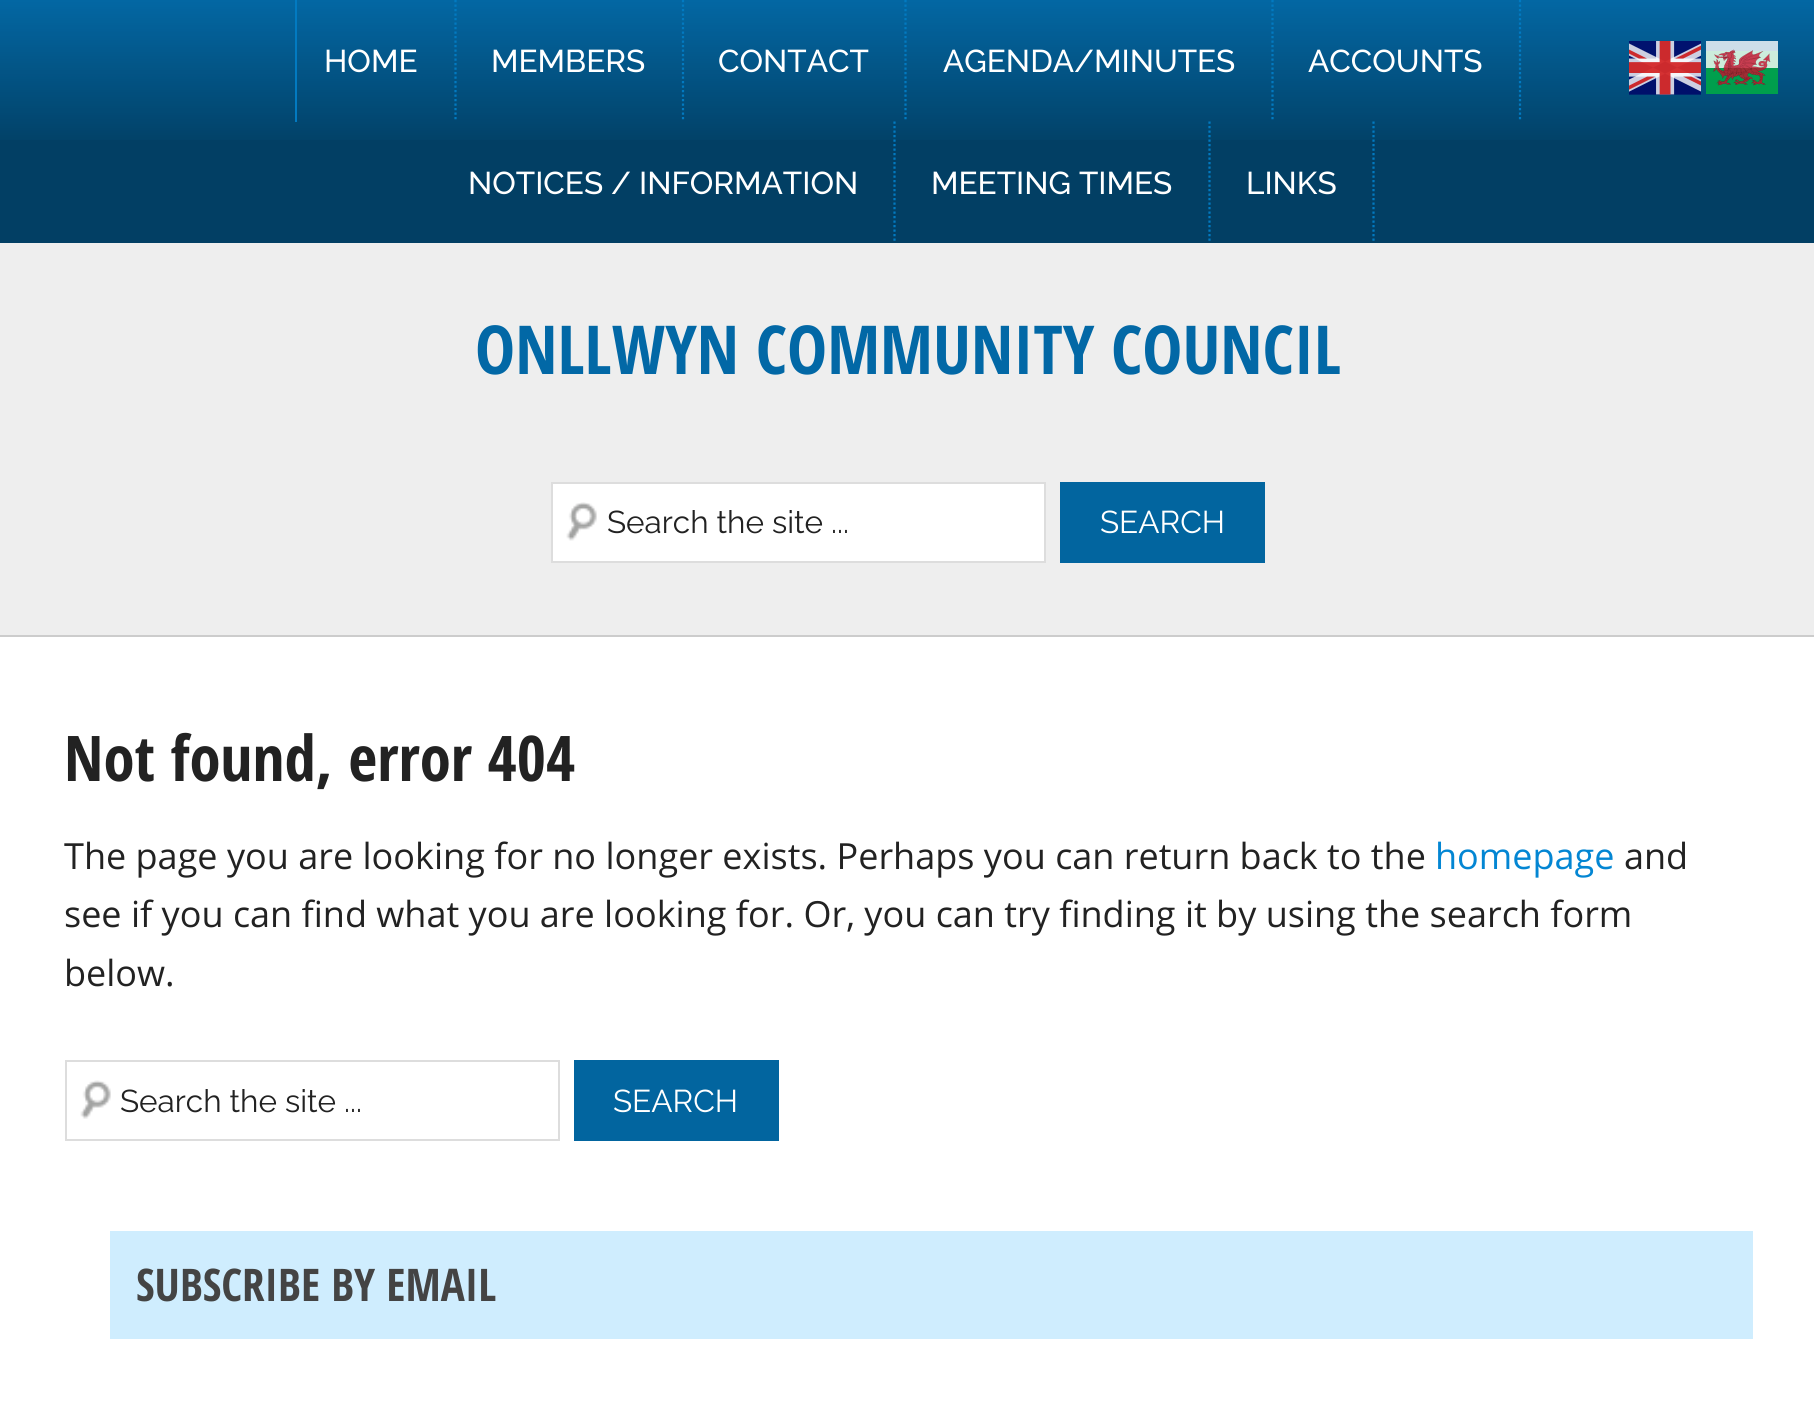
import math
import cairo

surface = cairo.ImageSurface(cairo.Format.RGB24, 1814, 1402)
ctx = cairo.Context(surface)
options = cairo.FontOptions()
options.set_hint_metrics(cairo.HintMetrics.OFF)
options.set_hint_style(cairo.HintStyle.NONE)
ctx.set_font_options(options)
ctx.set_miter_limit(4)


def ink(r, g, b):
    ctx.set_source_rgb(r / 255, g / 255, b / 255)


def write(x, y, s, family, size, color, bold=False, italic=False):
    ctx.select_font_face(family, cairo.FontSlant.ITALIC if italic else cairo.FontSlant.NORMAL, cairo.FontWeight.BOLD if bold else cairo.FontWeight.NORMAL)
    ctx.set_font_size(size)
    ink(*color)
    ctx.move_to(x, y)
    ctx.show_text(s)


def block(x, y, w, h, *color):
    ink(*color)
    ctx.rectangle(x, y, w, h)
    ctx.fill()


def paste(path, x, y, w, h):
    ctx.save()
    ctx.set_source_surface(cairo.ImageSurface.create_from_png(path), x, y)
    ctx.rectangle(x, y, w, h)
    ctx.fill()
    ctx.restore()


s1 = dict(family="Raleway Medium", size=31.5, color=(255, 255, 255))
s2 = dict(family="Open Sans Condensed", size=67.5, color=(2, 104, 166), bold=True)
s3 = dict(family="Raleway", size=31.5, color=(34, 34, 34))
s4 = dict(family="Raleway", size=31.5, color=(255, 255, 255))
s5 = dict(family="Open Sans Condensed", size=63, color=(34, 34, 34), bold=True)
s6 = dict(family="Open Sans", size=36, color=(34, 34, 34))
s7 = dict(family="Open Sans", size=36, color=(3, 134, 211))
s8 = dict(family="Open Sans Condensed", size=45, color=(68, 68, 68), bold=True)

ink(255, 255, 255)
ctx.paint()
block(0, 140, 1814, 103, 2, 63, 100)
paste("pic1.png", 0, 0, 1814, 140)
block(295, 0, 2, 122, 2, 122, 193)
ctx.new_path()
ctx.move_to(455.5, 0)
ctx.line_to(455.5, 121.5)
ctx.set_line_width(2.2)
ctx.set_dash([2.25, 2.25])
ctx.stroke()
write(324, 72, "HOME", **s1)
ctx.new_path()
ctx.move_to(683, 0)
ctx.line_to(683, 121.5)
ink(2, 122, 193)
ctx.stroke()
write(491, 72, "MEMBERS", **s1)
ctx.new_path()
ctx.move_to(905.5, 0)
ctx.line_to(905.5, 121.5)
ink(2, 122, 193)
ctx.stroke()
write(718, 72, "CONTACT", **s1)
ctx.new_path()
ctx.move_to(1272.5, 0)
ctx.line_to(1272.5, 121.5)
ink(2, 122, 193)
ctx.stroke()
write(943, 72, "AGENDA/MINUTES", **s1)
ctx.new_path()
ctx.move_to(1520, 0)
ctx.line_to(1520, 121.5)
ink(2, 122, 193)
ctx.stroke()
write(1308, 72, "ACCOUNTS", **s1)
ctx.new_path()
ctx.move_to(894.5, 121.5)
ctx.line_to(894.5, 243)
ink(2, 122, 193)
ctx.stroke()
write(468, 194, "NOTICES / INFORMATION", **s1)
ctx.new_path()
ctx.move_to(1209.5, 121.5)
ctx.line_to(1209.5, 243)
ink(2, 122, 193)
ctx.stroke()
write(931, 194, "MEETING TIMES", **s1)
ctx.new_path()
ctx.move_to(1373.5, 121.5)
ctx.line_to(1373.5, 243)
ink(2, 122, 193)
ctx.stroke()
write(1246, 194, "LINKS", **s1)
block(0, 243, 1814, 392, 238, 238, 238)
block(0, 635, 1814, 2, 204, 204, 204)
write(475, 374, "ONLLWYN COMMUNITY COUNCIL", **s2)
block(553, 484, 491, 77, 255, 255, 255)
paste("pic2.png", 566, 502, 31, 39)
ctx.rectangle(552, 483, 493, 79)
ink(221, 221, 221)
ctx.set_line_width(2)
ctx.set_dash([])
ctx.stroke()
write(607, 533, "Search the site ...", **s3)
block(1060, 482, 205, 81, 2, 101, 159)
write(1100, 533, "SEARCH", **s4)
write(64, 781, "Not found, error 404", **s5)
write(64, 869, "The page you are looking for no longer exists. Perhaps you can return back to the", **s6)
write(1435, 869, "homepage", **s7)
write(1624, 869, "and", **s6)
write(64, 927, "see if you can find what you are looking for. Or, you can try finding it by using the search form", **s6)
write(64, 986, "below.", **s6)
paste("pic3.png", 80, 1080, 31, 39)
ctx.rectangle(66, 1061, 493, 79)
ink(221, 221, 221)
ctx.stroke()
write(120, 1112, "Search the site ...", **s3)
block(574, 1060, 205, 81, 2, 101, 159)
write(613, 1112, "SEARCH", **s4)
block(110, 1231, 1643, 108, 207, 237, 254)
write(136, 1301, "SUBSCRIBE BY EMAIL", **s8)
paste("pic4.png", 1629, 41, 72, 54)
paste("pic5.png", 1706, 41, 72, 53)
surface.write_to_png("screenshot.png")
